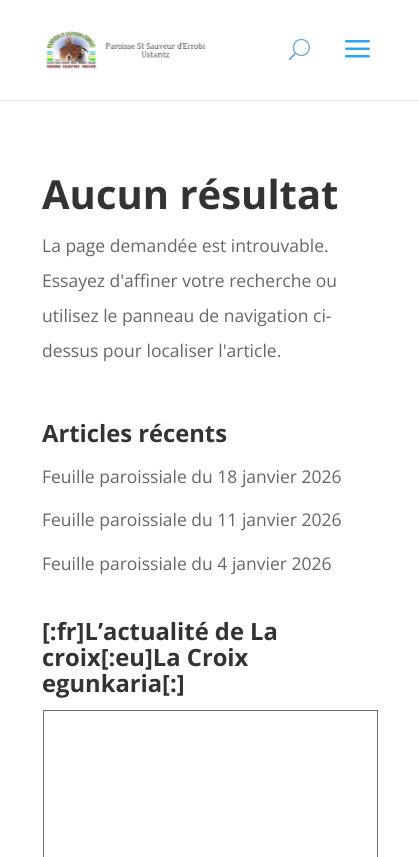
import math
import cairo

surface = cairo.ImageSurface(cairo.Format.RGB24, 419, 857)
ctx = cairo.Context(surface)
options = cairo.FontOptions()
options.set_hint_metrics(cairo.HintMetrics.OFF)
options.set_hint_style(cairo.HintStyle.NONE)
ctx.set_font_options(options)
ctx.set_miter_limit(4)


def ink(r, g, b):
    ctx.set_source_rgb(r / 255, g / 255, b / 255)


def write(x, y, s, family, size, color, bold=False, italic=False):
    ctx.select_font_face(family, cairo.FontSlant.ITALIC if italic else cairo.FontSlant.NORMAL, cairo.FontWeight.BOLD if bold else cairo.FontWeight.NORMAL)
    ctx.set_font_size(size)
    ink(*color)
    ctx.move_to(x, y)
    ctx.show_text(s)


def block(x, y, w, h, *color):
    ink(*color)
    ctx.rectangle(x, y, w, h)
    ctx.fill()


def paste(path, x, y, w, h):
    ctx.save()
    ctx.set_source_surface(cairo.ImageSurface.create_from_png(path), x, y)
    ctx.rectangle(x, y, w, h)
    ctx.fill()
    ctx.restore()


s1 = dict(family="Open Sans", size=40, color=(51, 51, 51), bold=True)
s2 = dict(family="Open Sans", size=17.5, color=(102, 102, 102))
s3 = dict(family="Open Sans", size=23.75, color=(51, 51, 51), bold=True)

ink(255, 255, 255)
ctx.paint()
block(0, 100, 419, 1, 230, 230, 230)
paste("pic1.png", 46, 31, 160, 38)
paste("pic2.png", 288, 38, 22, 23)
paste("pic3.png", 345, 40, 25, 18)
write(42, 209, "Aucun résultat", **s1)
write(42, 252, "La page demandée est introuvable.", **s2)
write(42, 287, "Essayez d'affiner votre recherche ou", **s2)
write(42, 322, "utilisez le panneau de navigation ci-", **s2)
write(42, 357, "dessus pour localiser l'article.", **s2)
write(42, 442, "Articles récents", **s3)
write(42, 483, "Feuille paroissiale du 18 janvier 2026", **s2)
write(42, 526, "Feuille paroissiale du 11 janvier 2026", **s2)
write(42, 570, "Feuille paroissiale du 4 janvier 2026", **s2)
write(42, 640, "[:fr]L’actualité de La", **s3)
write(42, 666, "croix[:eu]La Croix", **s3)
write(42, 692, "egunkaria[:]", **s3)
ctx.rectangle(43.5, 710.5, 334, 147)
ink(108, 109, 112)
ctx.set_line_width(1)
ctx.stroke()
surface.write_to_png("screenshot.png")
